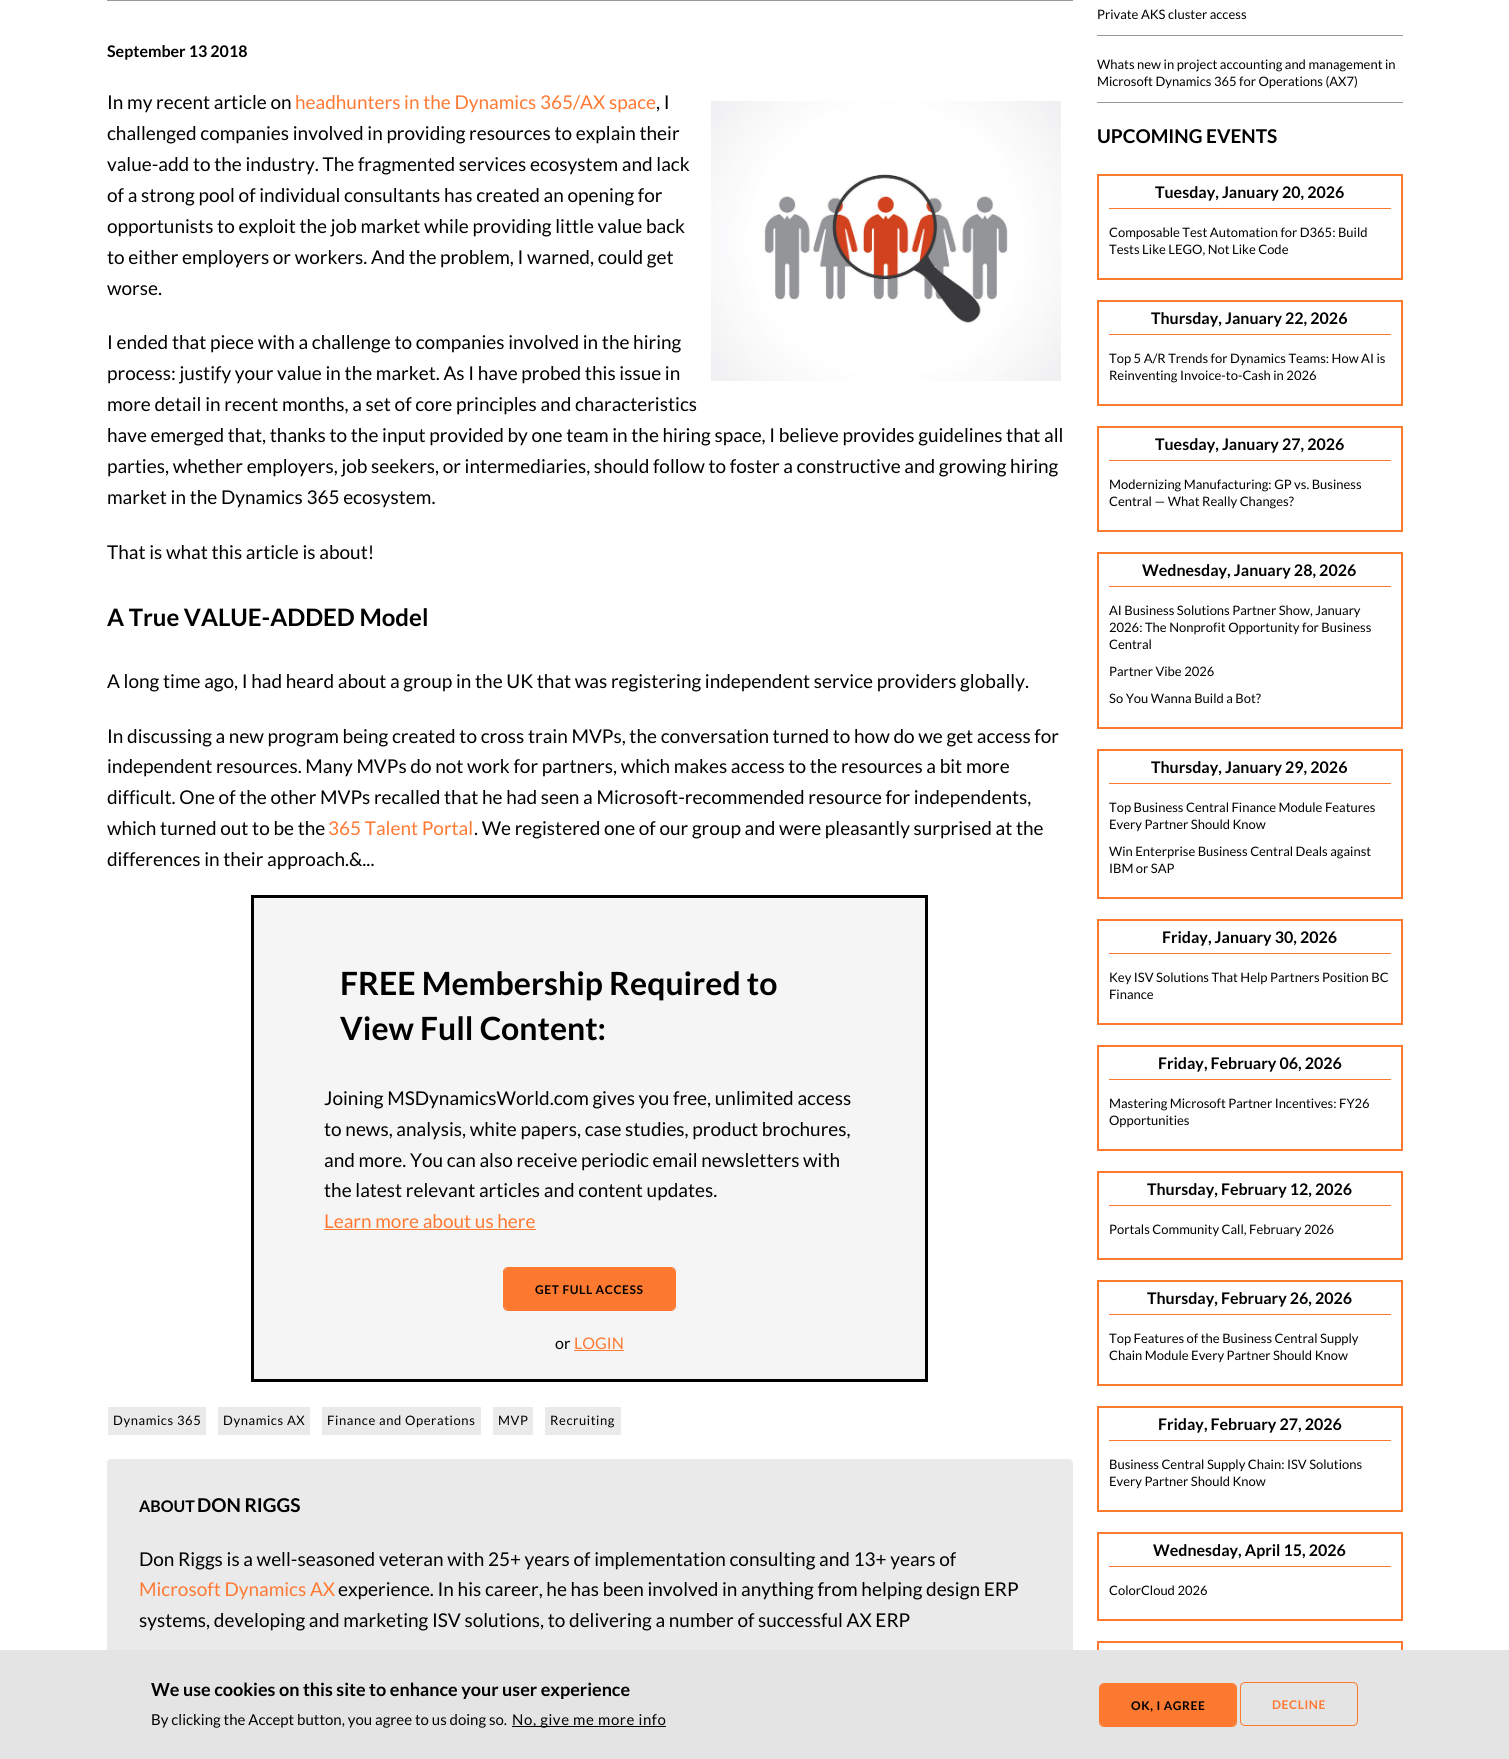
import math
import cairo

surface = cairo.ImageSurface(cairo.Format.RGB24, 1509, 1759)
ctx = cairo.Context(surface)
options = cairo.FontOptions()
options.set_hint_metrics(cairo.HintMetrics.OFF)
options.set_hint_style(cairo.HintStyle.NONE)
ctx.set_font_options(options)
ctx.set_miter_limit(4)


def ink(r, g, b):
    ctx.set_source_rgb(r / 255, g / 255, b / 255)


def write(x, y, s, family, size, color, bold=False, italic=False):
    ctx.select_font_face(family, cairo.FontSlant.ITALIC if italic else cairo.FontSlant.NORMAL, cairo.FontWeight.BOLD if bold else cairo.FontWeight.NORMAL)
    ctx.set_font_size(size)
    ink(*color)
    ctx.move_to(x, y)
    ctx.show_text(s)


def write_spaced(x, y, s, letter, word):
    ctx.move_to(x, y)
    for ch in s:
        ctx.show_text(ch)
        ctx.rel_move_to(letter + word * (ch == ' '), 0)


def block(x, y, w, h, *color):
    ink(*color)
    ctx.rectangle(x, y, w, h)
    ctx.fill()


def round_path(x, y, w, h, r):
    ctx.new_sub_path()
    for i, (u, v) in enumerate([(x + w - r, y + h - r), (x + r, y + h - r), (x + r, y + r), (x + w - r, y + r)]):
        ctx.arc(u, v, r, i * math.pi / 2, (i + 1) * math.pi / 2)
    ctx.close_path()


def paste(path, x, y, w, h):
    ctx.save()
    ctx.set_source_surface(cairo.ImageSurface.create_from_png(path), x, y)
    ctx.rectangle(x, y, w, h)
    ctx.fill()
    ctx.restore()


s1 = dict(family="Lato", size=16, color=(0, 0, 0), bold=True)
s2 = dict(family="Lato", size=19, color=(0, 0, 0))
s3 = dict(family="Lato", size=19, color=(255, 121, 51))
s4 = dict(family="Lato", size=24, color=(0, 0, 0), bold=True)
s5 = dict(family="Lato", size=32, color=(0, 0, 0), bold=True)
s6 = dict(family="Lato", size=16, color=(0, 0, 0))
s7 = dict(family="Lato", size=16, color=(255, 121, 51))
s8 = dict(family="Lato", size=19, color=(0, 0, 0), bold=True)
s9 = dict(family="Lato", size=13, color=(0, 0, 0))
s10 = dict(family="Lato", size=18, color=(0, 0, 0), bold=True)
s11 = dict(family="Lato", size=15, color=(0, 0, 0))

ink(255, 255, 255)
ctx.paint()
block(107, 0, 966, 1, 153, 153, 153)
write(107, 57, "September 13 2018", **s1)
write(107, 109, "In my recent article on", **s2)
write(295, 109, "headhunters in the Dynamics 365/AX space", **s3)
write(656, 109, ", I", **s2)
paste("pic1.png", 711, 101, 350, 280)
write(107, 140, "challenged companies involved in providing resources to explain their", **s2)
write(107, 171, "value-add to the industry. The fragmented services ecosystem and lack", **s2)
write(107, 202, "of a strong pool of individual consultants has created an opening for", **s2)
write(107, 233, "opportunists to exploit the job market while providing little value back", **s2)
write(107, 264, "to either employers or workers. And the problem, I warned, could get", **s2)
write(107, 295, "worse.", **s2)
write(107, 349, "I ended that piece with a challenge to companies involved in the hiring", **s2)
write(107, 380, "process: justify your value in the market. As I have probed this issue in", **s2)
write(107, 411, "more detail in recent months, a set of core principles and characteristics", **s2)
write(107, 442, "have emerged that, thanks to the input provided by one team in the hiring space, I believe provides guidelines that all", **s2)
write(107, 473, "parties, whether employers, job seekers, or intermediaries, should follow to foster a constructive and growing hiring", **s2)
write(107, 504, "market in the Dynamics 365 ecosystem.", **s2)
write(107, 559, "That is what this article is about!", **s2)
write(107, 626, "A True VALUE-ADDED Model", **s4)
write(107, 688, "A long time ago, I had heard about a group in the UK that was registering independent service providers globally.", **s2)
write(107, 743, "In discussing a new program being created to cross train MVPs, the conversation turned to how do we get access for", **s2)
write(107, 773, "independent resources. Many MVPs do not work for partners, which makes access to the resources a bit more", **s2)
write(107, 804, "difficult. One of the other MVPs recalled that he had seen a Microsoft-recommended resource for independents,", **s2)
write(107, 835, "which turned out to be the", **s2)
write(328, 835, "365 Talent Portal", **s3)
write(474, 835, ". We registered one of our group and were pleasantly surprised at the", **s2)
write(107, 866, "differences in their approach.&...", **s2)
ink(245, 245, 245)
ctx.rectangle(252.5, 896.5, 674, 484)
ctx.fill_preserve()
ink(0, 0, 0)
ctx.set_line_width(3)
ctx.stroke()
write(340, 995, "FREE Membership Required to", **s5)
write(340, 1040, "View Full Content:", **s5)
write(324, 1105, "Joining MSDynamicsWorld.com gives you free, unlimited access", **s2)
write(324, 1136, "to news, analysis, white papers, case studies, product brochures,", **s2)
write(324, 1167, "and more. You can also receive periodic email newsletters with", **s2)
write(324, 1197, "the latest relevant articles and content updates.", **s2)
write(324, 1228, "Learn more about us here", **s3)
block(324, 1229, 212, 1, 255, 121, 51)
ink(253, 121, 48)
round_path(504, 1268, 171, 42, 4)
ctx.fill()
round_path(503.5, 1267.5, 172, 43, 4.5)
ctx.set_line_width(1)
ctx.stroke()
ctx.select_font_face("Lato", cairo.FontSlant.NORMAL, cairo.FontWeight.BOLD)
ctx.set_font_size(12)
ink(0, 0, 0)
write_spaced(535, 1294, "GET FULL ACCESS", 0.6, 0)
write(555, 1349, "or", **s6)
write(574, 1349, "LOGIN", **s7)
block(574, 1350, 50, 1, 255, 121, 51)
block(108, 1407, 98, 28, 234, 234, 234)
ctx.set_font_size(13)
ink(0, 0, 0)
write_spaced(113, 1425, "Dynamics 365", 0.6, 0)
block(218, 1407, 92, 28, 234, 234, 234)
ink(0, 0, 0)
write_spaced(223, 1425, "Dynamics AX", 0.6, 0)
block(322, 1407, 159, 28, 234, 234, 234)
ink(0, 0, 0)
write_spaced(327, 1425, "Finance and Operations", 0.6, 0)
block(493, 1407, 40, 28, 234, 234, 234)
ink(0, 0, 0)
write_spaced(498, 1425, "MVP", 0.6, 0)
block(545, 1407, 76, 28, 234, 234, 234)
ink(0, 0, 0)
write_spaced(550, 1425, "Recruiting", 0.6, 0)
ink(234, 234, 234)
round_path(107, 1459, 966, 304, 4)
ctx.fill()
write(139, 1512, "ABOUT", **s1)
write(197, 1512, "DON RIGGS", **s8)
write(139, 1566, "Don Riggs is a well-seasoned veteran with 25+ years of implementation consulting and 13+ years of", **s2)
write(139, 1596, "Microsoft Dynamics AX", **s3)
write(338, 1596, "experience. In his career, he has been involved in anything from helping design ERP", **s2)
write(139, 1627, "systems, developing and marketing ISV solutions, to delivering a number of successful AX ERP", **s2)
write(1097, 19, "Private AKS cluster access", **s9)
block(1097, 35, 306, 1, 153, 153, 153)
write(1097, 69, "Whats new in project accounting and management in", **s9)
write(1097, 86, "Microsoft Dynamics 365 for Operations (AX7)", **s9)
block(1097, 102, 306, 1, 153, 153, 153)
write(1097, 143, "UPCOMING EVENTS", **s8)
ctx.rectangle(1098, 175, 304, 104)
ink(253, 121, 48)
ctx.set_line_width(2)
ctx.stroke()
write(1155, 198, "Tuesday, January 20, 2026", **s1)
block(1109, 208, 282, 1, 253, 121, 48)
write(1109, 237, "Composable Test Automation for D365: Build", **s9)
write(1109, 254, "Tests Like LEGO, Not Like Code", **s9)
ctx.rectangle(1098, 301, 304, 104)
ink(253, 121, 48)
ctx.stroke()
write(1151, 324, "Thursday, January 22, 2026", **s1)
block(1109, 334, 282, 1, 253, 121, 48)
write(1109, 363, "Top 5 A/R Trends for Dynamics Teams: How AI is", **s9)
write(1109, 380, "Reinventing Invoice-to-Cash in 2026", **s9)
ctx.rectangle(1098, 427, 304, 104)
ink(253, 121, 48)
ctx.stroke()
write(1155, 450, "Tuesday, January 27, 2026", **s1)
block(1109, 460, 282, 1, 253, 121, 48)
write(1109, 489, "Modernizing Manufacturing: GP vs. Business", **s9)
write(1109, 506, "Central — What Really Changes?", **s9)
ctx.rectangle(1098, 553, 304, 175)
ink(253, 121, 48)
ctx.stroke()
write(1142, 576, "Wednesday, January 28, 2026", **s1)
block(1109, 586, 282, 1, 253, 121, 48)
write(1109, 615, "AI Business Solutions Partner Show, January", **s9)
write(1109, 632, "2026: The Nonprofit Opportunity for Business", **s9)
write(1109, 649, "Central", **s9)
write(1109, 676, "Partner Vibe 2026", **s9)
write(1109, 703, "So You Wanna Build a Bot?", **s9)
ctx.rectangle(1098, 750, 304, 148)
ink(253, 121, 48)
ctx.stroke()
write(1151, 773, "Thursday, January 29, 2026", **s1)
block(1109, 783, 282, 1, 253, 121, 48)
write(1109, 812, "Top Business Central Finance Module Features", **s9)
write(1109, 829, "Every Partner Should Know", **s9)
write(1109, 856, "Win Enterprise Business Central Deals against", **s9)
write(1109, 873, "IBM or SAP", **s9)
ctx.rectangle(1098, 920, 304, 104)
ink(253, 121, 48)
ctx.stroke()
write(1162, 943, "Friday, January 30, 2026", **s1)
block(1109, 953, 282, 1, 253, 121, 48)
write(1109, 982, "Key ISV Solutions That Help Partners Position BC", **s9)
write(1109, 999, "Finance", **s9)
ctx.rectangle(1098, 1046, 304, 104)
ink(253, 121, 48)
ctx.stroke()
write(1158, 1069, "Friday, February 06, 2026", **s1)
block(1109, 1079, 282, 1, 253, 121, 48)
write(1109, 1108, "Mastering Microsoft Partner Incentives: FY26", **s9)
write(1109, 1125, "Opportunities", **s9)
ctx.rectangle(1098, 1172, 304, 87)
ink(253, 121, 48)
ctx.stroke()
write(1147, 1195, "Thursday, February 12, 2026", **s1)
block(1109, 1205, 282, 1, 253, 121, 48)
write(1109, 1234, "Portals Community Call, February 2026", **s9)
ctx.rectangle(1098, 1281, 304, 104)
ink(253, 121, 48)
ctx.stroke()
write(1147, 1304, "Thursday, February 26, 2026", **s1)
block(1109, 1314, 282, 1, 253, 121, 48)
write(1109, 1343, "Top Features of the Business Central Supply", **s9)
write(1109, 1360, "Chain Module Every Partner Should Know", **s9)
ctx.rectangle(1098, 1407, 304, 104)
ink(253, 121, 48)
ctx.stroke()
write(1158, 1430, "Friday, February 27, 2026", **s1)
block(1109, 1440, 282, 1, 253, 121, 48)
write(1109, 1469, "Business Central Supply Chain: ISV Solutions", **s9)
write(1109, 1486, "Every Partner Should Know", **s9)
ctx.rectangle(1098, 1533, 304, 87)
ink(253, 121, 48)
ctx.stroke()
write(1153, 1556, "Wednesday, April 15, 2026", **s1)
block(1109, 1566, 282, 1, 253, 121, 48)
write(1109, 1595, "ColorCloud 2026", **s9)
ctx.rectangle(1098, 1642, 304, 87)
ink(253, 121, 48)
ctx.stroke()
block(0, 1650, 1509, 109, 228, 228, 228)
write(151, 1696, "We use cookies on this site to enhance your user experience", **s10)
write(151, 1725, "By clicking the Accept button, you agree to us doing so.", **s11)
block(512, 1726, 154, 1, 0, 0, 0)
write_spaced(512, 1725, "No, give me more info", 0.6, 0)
ink(253, 121, 48)
round_path(1100, 1684, 136, 42, 4)
ctx.fill()
round_path(1099.5, 1683.5, 137, 43, 4.5)
ctx.set_line_width(1)
ctx.stroke()
ctx.select_font_face("Lato", cairo.FontSlant.NORMAL, cairo.FontWeight.BOLD)
ctx.set_font_size(12)
ink(0, 0, 0)
write_spaced(1131, 1710, "OK, I AGREE", 0.6, 0)
round_path(1240.5, 1682.5, 117, 43, 4.5)
ink(253, 121, 48)
ctx.stroke()
ink(255, 121, 51)
write_spaced(1272, 1709, "DECLINE", 0.6, 0)
surface.write_to_png("screenshot.png")
